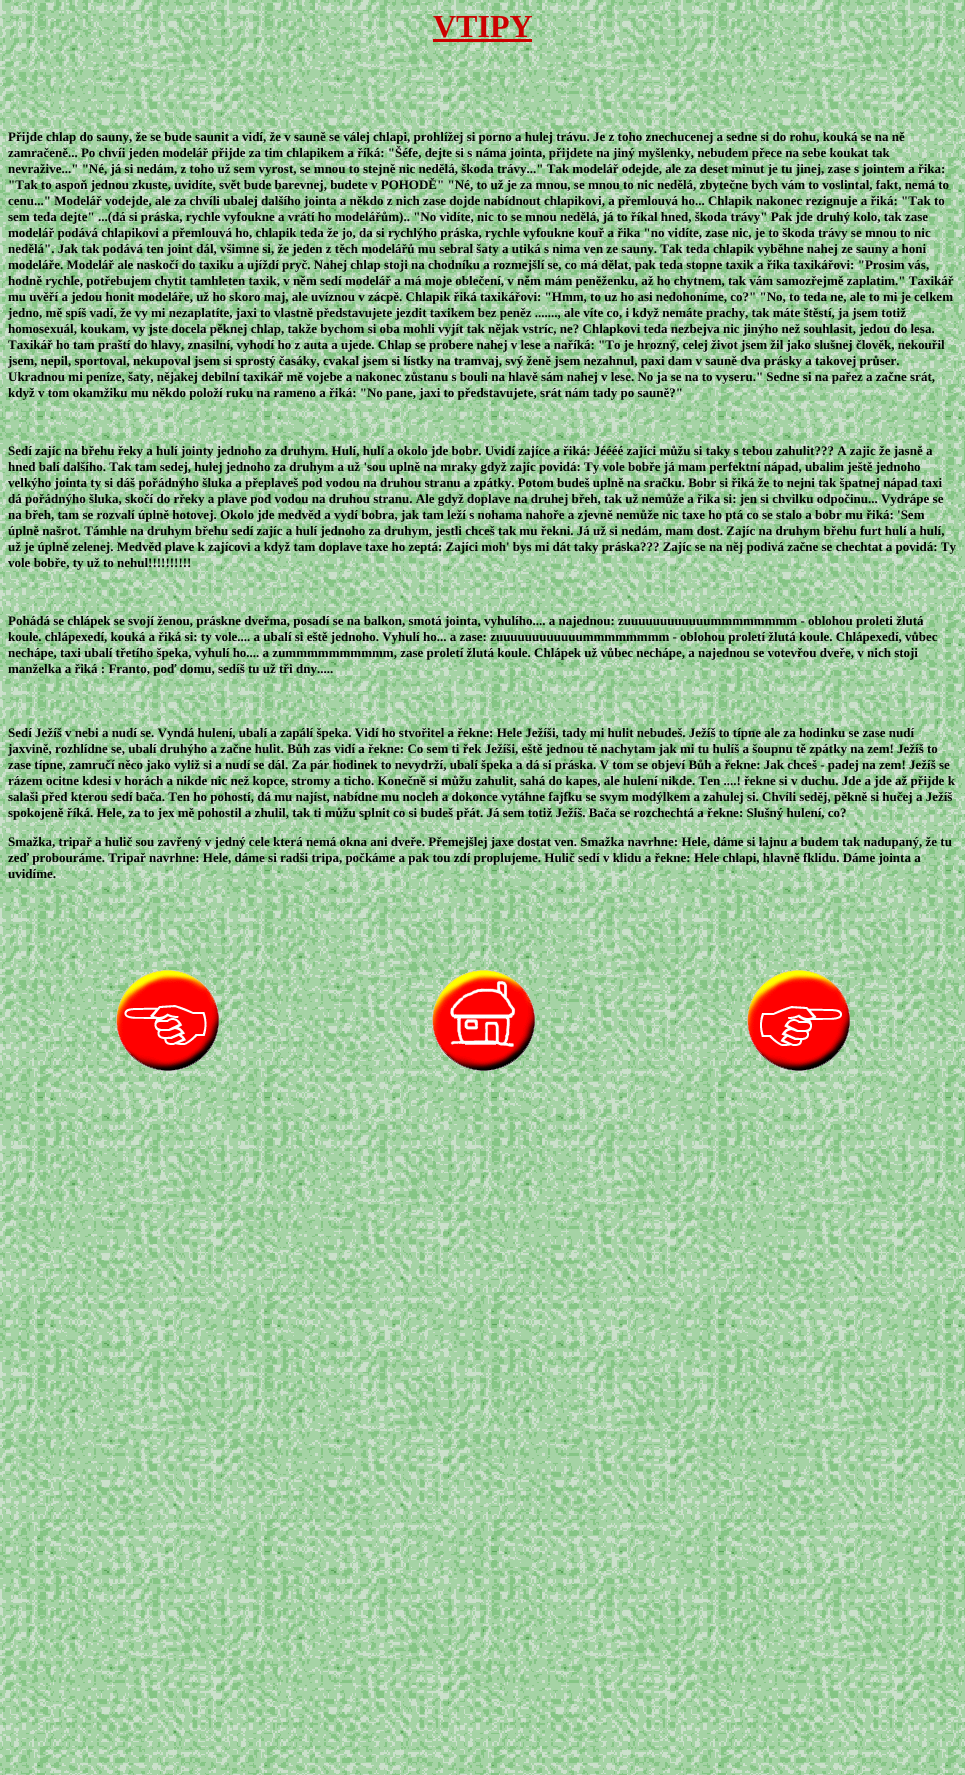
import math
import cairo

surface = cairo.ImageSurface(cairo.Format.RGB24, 965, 1775)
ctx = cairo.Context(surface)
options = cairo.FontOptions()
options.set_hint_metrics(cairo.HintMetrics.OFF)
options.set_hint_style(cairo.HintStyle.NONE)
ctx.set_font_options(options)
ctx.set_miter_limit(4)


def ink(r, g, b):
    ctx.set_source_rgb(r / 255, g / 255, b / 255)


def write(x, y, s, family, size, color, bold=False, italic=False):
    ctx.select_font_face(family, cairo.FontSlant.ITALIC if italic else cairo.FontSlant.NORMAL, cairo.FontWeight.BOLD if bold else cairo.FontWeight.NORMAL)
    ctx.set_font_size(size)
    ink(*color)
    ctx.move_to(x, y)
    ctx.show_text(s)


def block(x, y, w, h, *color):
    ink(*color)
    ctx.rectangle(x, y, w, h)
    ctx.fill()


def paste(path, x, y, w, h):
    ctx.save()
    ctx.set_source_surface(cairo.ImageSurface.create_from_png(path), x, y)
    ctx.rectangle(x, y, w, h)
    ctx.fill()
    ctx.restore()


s1 = dict(family="Liberation Serif", size=32, color=(204, 0, 0), bold=True)
s2 = dict(family="Liberation Serif", size=13, color=(0, 0, 0), bold=True)

ink(255, 255, 255)
ctx.paint()
paste("pic1.png", 0, 0, 965, 1775)
write(433, 37, "VTIPY", **s1)
block(433, 39, 99, 3, 204, 0, 0)
write(8, 141, "Přijde chlap do sauny, že se bude saunit a vidí, že v sauně se válej chlapi, prohlížej si porno a hulej trávu. Je z toho znechucenej a sedne si do rohu, kouká se na ně", **s2)
write(8, 157, "zamračeně... Po chvíi jeden modelář přijde za tim chlapikem a říká: \"Šéfe, dejte si s náma jointa, přijdete na jiný myšlenky, nebudem přece na sebe koukat tak", **s2)
write(8, 173, "nevražive...\" \"Né, já si nedám, z toho už sem vyrost, se mnou to stejně nic nedělá, škoda trávy...\" Tak modelář odejde, ale za deset minut je tu jinej, zase s jointem a řika:", **s2)
write(8, 189, "\"Tak to aspoň jednou zkuste, uvidíte, svět bude barevnej, budete v POHODĚ\" \"Né, to už je za mnou, se mnou to nic nedělá, zbytečne bych vám to voslintal, fakt, nemá to", **s2)
write(8, 205, "cenu...\" Modelář vodejde, ale za chvíli ubalej dalšího jointa a někdo z nich zase dojde nabídnout chlapikovi, a přemlouvá ho... Chlapik nakonec rezignuje a řiká: \"Tak to", **s2)
write(8, 221, "sem teda dejte\" ...(dá si práska, rychle vyfoukne a vrátí ho modelářům).. \"No vidíte, nic to se mnou nedělá, já to říkal hned, škoda trávy\" Pak jde druhý kolo, tak zase", **s2)
write(8, 237, "modelář podává chlapikovi a přemlouvá ho, chlapik teda že jo, da si rychlýho práska, rychle vyfoukne kouř a řika \"no vidíte, zase nic, je to škoda trávy se mnou to nic", **s2)
write(8, 253, "nedělá\". Jak tak podává ten joint dál, všimne si, že jeden z těch modelářů mu sebral šaty a utiká s nima ven ze sauny. Tak teda chlapik vyběhne nahej ze sauny a honi", **s2)
write(8, 269, "modeláře. Modelář ale naskočí do taxiku a ujíždí pryč. Nahej chlap stoji na chodníku a rozmejšlí se, co má dělat, pak teda stopne taxik a řika taxikářovi: \"Prosim vás,", **s2)
write(8, 285, "hodně rychle, potřebujem chytit tamhleten taxik, v něm sedí modelář a má moje oblečení, v něm mám peněženku, až ho chytnem, tak vám samozřejmě zaplatim.\" Taxikář", **s2)
write(8, 301, "mu uvěří a jedou honit modeláře, už ho skoro maj, ale uvíznou v zácpě. Chlapik řiká taxikářovi: \"Hmm, to uz ho asi nedohoníme, co?\" \"No, to teda ne, ale to mi je celkem", **s2)
write(8, 317, "jedno, mě spíš vadí, že vy mi nezaplatíte, jaxi to vlastně představujete jezdit taxikem bez peněz ......., ale víte co, i když nemáte prachy, tak máte štěstí, ja jsem totiž", **s2)
write(8, 333, "homosexuál, koukam, vy jste docela pěknej chlap, takže bychom si oba mohli vyjít tak nějak vstríc, ne? Chlapkovi teda nezbejva nic jinýho než souhlasit, jedou do lesa.", **s2)
write(8, 349, "Taxikář ho tam praští do hlavy, znasilní, vyhodí ho z auta a ujede. Chlap se probere nahej v lese a naříká: \"To je hrozný, celej život jsem žil jako slušnej člověk, nekouřil", **s2)
write(8, 365, "jsem, nepil, sportoval, nekupoval jsem si sprostý časáky, cvakal jsem si lístky na tramvaj, svý ženě jsem nezahnul, paxi dam v sauně dva prásky a takovej průser.", **s2)
write(8, 381, "Ukradnou mi peníze, šaty, nějakej debilní taxikář mě vojebe a nakonec zůstanu s bouli na hlavě sám nahej v lese. No ja se na to vyseru.\" Sedne si na pařez a začne srát,", **s2)
write(8, 397, "když v tom okamžiku mu někdo položí ruku na rameno a řiká: \"No pane, jaxi to představujete, srát nám tady po sauně?\"", **s2)
write(8, 455, "Sedí zajíc na břehu řeky a hulí jointy jednoho za druhym. Hulí, hulí a okolo jde bobr. Uvidí zajíce a řiká: Jéééé zajíci můžu si taky s tebou zahulit??? A zajic že jasně a", **s2)
write(8, 471, "hned balí dalšího. Tak tam sedej, hulej jednoho za druhym a už 'sou uplně na mraky gdyž zajíc povidá: Ty vole bobře já mam perfektní nápad, ubalim ještě jednoho", **s2)
write(8, 487, "velkýho jointa ty si dáš pořádnýho šluka a přeplaveš pod vodou na druhou stranu a zpátky. Potom budeš uplně na sračku. Bobr si řiká že to nejni tak špatnej nápad taxi", **s2)
write(8, 503, "dá pořádnýho šluka, skočí do rřeky a plave pod vodou na druhou stranu. Ale gdyž doplave na druhej břeh, tak už nemůže a řika si: jen si chvilku odpočinu... Vydrápe se", **s2)
write(8, 519, "na břeh, tam se rozvalí úplně hotovej. Okolo jde medvěd a vydí bobra, jak tam leží s nohama nahoře a zjevně nemůže nic taxe ho ptá co se stalo a bobr mu řiká: 'Sem", **s2)
write(8, 535, "úplně našrot. Támhle na druhym břehu sedí zajíc a hulí jednoho za druhym, jestli chceš tak mu řekni. Já už si nedám, mam dost. Zajíc na druhym břehu furt hulí a hulí,", **s2)
write(8, 551, "už je úplně zelenej. Medvěd plave k zajícovi a když tam doplave taxe ho zeptá: Zajíci moh' bys mi dát taky práska??? Zajíc se na něj podivá začne se chechtat a povidá: Ty", **s2)
write(8, 567, "vole bobře, ty už to nehul!!!!!!!!!!", **s2)
write(8, 625, "Pohádá se chlápek se svojí ženou, práskne dveřma, posadí se na balkon, smotá jointa, vyhulího.... a najednou: zuuuuuuuuuuuummmmmmmm - oblohou proleti žlutá", **s2)
write(8, 641, "koule. chlápexedí, kouká a řiká si: ty vole.... a ubalí si eště jednoho. Vyhulí ho... a zase: zuuuuuuuuuuuummmmmmmm - oblohou proletí žlutá koule. Chlápexedí, vůbec", **s2)
write(8, 657, "nechápe, taxi ubalí třetího špeka, vyhulí ho.... a zummmmmmmmmm, zase proletí žlutá koule. Chlápek už vůbec nechápe, a najednou se votevřou dveře, v nich stoji", **s2)
write(8, 673, "manželka a řiká : Franto, poď domu, sedíš tu už tři dny.....", **s2)
write(8, 737, "Sedí Ježíš v nebi a nudí se. Vyndá hulení, ubalí a zapálí špeka. Vidí ho stvořitel a řekne: Hele Ježíši, tady mi hulit nebudeš. Ježíš to típne ale za hodinku se zase nudí", **s2)
write(8, 753, "jaxvině, rozhlídne se, ubalí druhýho a začne hulit. Bůh zas vidí a řekne: Co sem ti řek Ježíši, eště jednou tě nachytam jak mi tu hulíš a šoupnu tě zpátky na zem! Ježíš to", **s2)
write(8, 769, "zase típne, zamručí něco jako vyliž si a nudí se dál. Za pár hodinek to nevydrží, ubalí špeka a dá si práska. V tom se objeví Bůh a řekne: Jak chceš - padej na zem! Ježíš se", **s2)
write(8, 785, "rázem ocitne kdesi v horách a nikde nic než kopce, stromy a ticho. Konečně si můžu zahulit, sahá do kapes, ale hulení nikde. Ten ....! řekne si v duchu. Jde a jde až přijde k", **s2)
write(8, 801, "salaši před kterou sedí bača. Ten ho pohostí, dá mu najíst, nabídne mu nocleh a dokonce vytáhne fajfku se svym modýlkem a zahulej si. Chvíli seděj, pěkně si hučej a Ježíš", **s2)
write(8, 817, "spokojeně říká. Hele, za to jex mě pohostil a zhulil, tak ti můžu splnit", **s2)
write(393, 817, "co si budeš přát. Já sem totiž Ježíš. Bača se rozchechtá a řekne: Slušný hulení, co?", **s2)
write(8, 846, "Smažka, tripař a hulič sou zavřený v jedný cele která nemá okna ani dveře. Přemejšlej jaxe dostat ven. Smažka navrhne: Hele, dáme si lajnu a budem tak nadupaný, že tu", **s2)
write(8, 862, "zeď probouráme. Tripař navrhne: Hele, dáme si radši tripa, počkáme a pak tou zdí proplujeme. Hulič sedí v klidu a řekne: Hele chlapi, hlavně fklidu. Dáme jointa a", **s2)
write(8, 878, "uvidíme.", **s2)
paste("pic2.png", 116, 970, 103, 101)
paste("pic3.png", 432, 970, 103, 101)
paste("pic4.png", 747, 970, 103, 101)
surface.write_to_png("screenshot.png")
